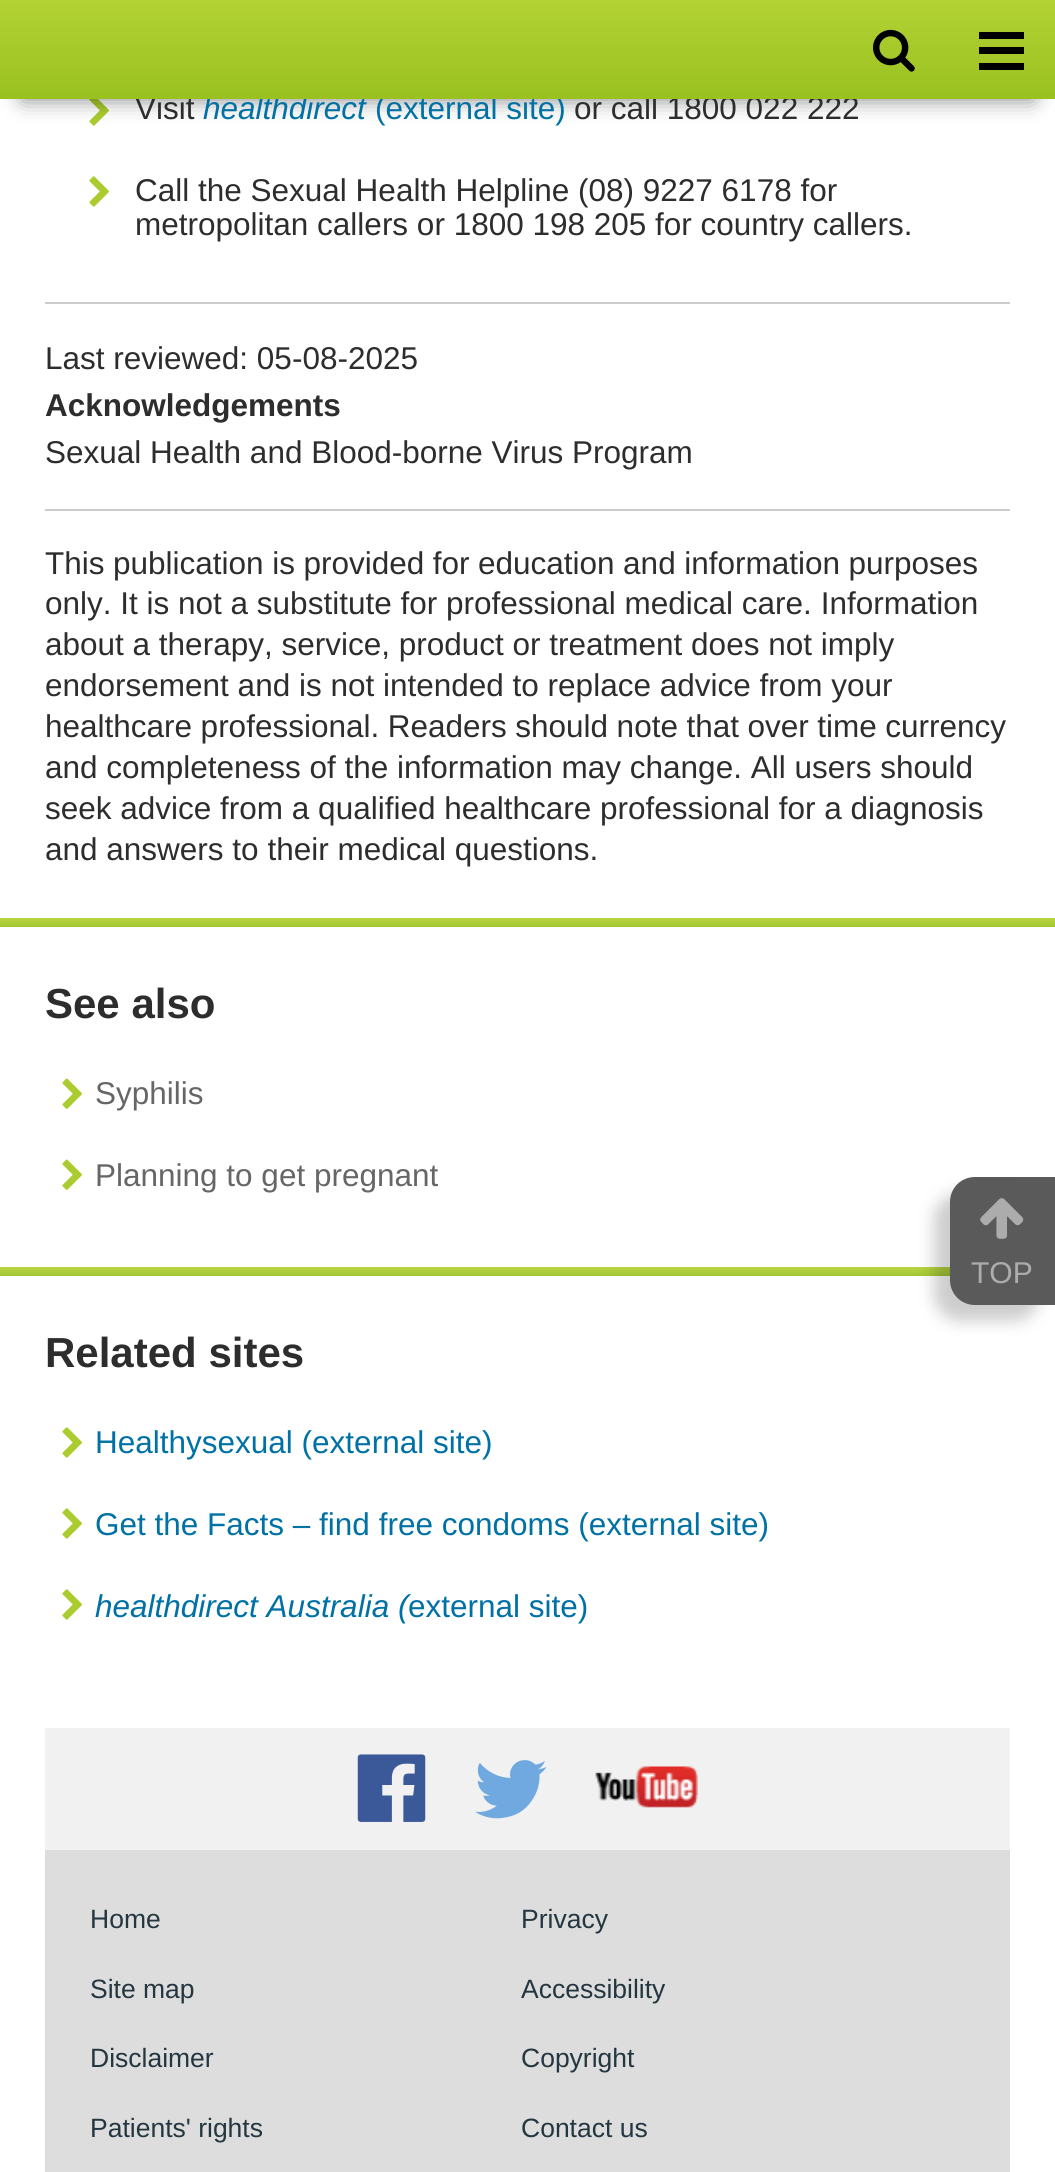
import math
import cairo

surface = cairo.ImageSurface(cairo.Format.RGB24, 1055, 2172)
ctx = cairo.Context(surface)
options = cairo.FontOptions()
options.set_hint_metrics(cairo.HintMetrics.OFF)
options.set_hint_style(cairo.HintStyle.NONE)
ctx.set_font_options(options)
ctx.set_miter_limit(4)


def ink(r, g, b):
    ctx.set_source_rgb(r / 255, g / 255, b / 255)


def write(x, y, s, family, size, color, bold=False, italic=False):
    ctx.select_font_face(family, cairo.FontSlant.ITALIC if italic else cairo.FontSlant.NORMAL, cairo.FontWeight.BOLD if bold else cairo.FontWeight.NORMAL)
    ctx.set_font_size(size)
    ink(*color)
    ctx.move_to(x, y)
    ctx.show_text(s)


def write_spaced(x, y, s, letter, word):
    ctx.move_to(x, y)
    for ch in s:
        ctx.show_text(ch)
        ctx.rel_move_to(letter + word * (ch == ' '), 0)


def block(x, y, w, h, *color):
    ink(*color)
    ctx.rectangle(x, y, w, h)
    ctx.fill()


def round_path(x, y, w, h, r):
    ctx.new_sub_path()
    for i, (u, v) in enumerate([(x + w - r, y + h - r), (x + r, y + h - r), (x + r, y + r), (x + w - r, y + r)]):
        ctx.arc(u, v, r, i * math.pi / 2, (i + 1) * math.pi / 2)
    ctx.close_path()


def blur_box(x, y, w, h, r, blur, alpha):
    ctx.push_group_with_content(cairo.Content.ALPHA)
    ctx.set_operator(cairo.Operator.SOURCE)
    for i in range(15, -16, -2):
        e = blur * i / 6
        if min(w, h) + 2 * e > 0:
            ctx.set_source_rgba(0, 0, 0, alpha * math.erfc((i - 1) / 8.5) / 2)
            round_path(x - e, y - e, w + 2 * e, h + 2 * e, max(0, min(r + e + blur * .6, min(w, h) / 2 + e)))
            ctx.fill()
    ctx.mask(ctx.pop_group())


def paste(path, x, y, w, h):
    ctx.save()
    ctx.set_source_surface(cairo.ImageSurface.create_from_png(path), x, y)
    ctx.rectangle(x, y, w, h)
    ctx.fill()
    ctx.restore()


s1 = dict(family="Liberation Sans", size=31.5, color=(45, 45, 45))
s2 = dict(family="Liberation Sans", size=31.5, color=(0, 113, 165), italic=True)
s3 = dict(family="Liberation Sans", size=31.5, color=(0, 113, 165))
s4 = dict(family="Liberation Sans", size=31.5, color=(45, 45, 45), bold=True)
s5 = dict(family="Liberation Sans", size=42, color=(45, 45, 45), bold=True)
s6 = dict(family="Liberation Sans", size=31.5, color=(102, 102, 102))
s7 = dict(family="Liberation Sans", size=26.5, color=(36, 55, 65))
s8 = dict(family="Liberation Sans", size=30, color=(173, 172, 172))

ink(255, 255, 255)
ctx.paint()
paste("pic2.png", 89, 99, 20, 27)
ink(0, 0, 0)
blur_box(23, 0, 1010, 99, 0, 11, 0.5)
write(135, 119, "Visit", **s1)
write(203, 119, "healthdirect", **s2)
write(375, 119, "(external site)", **s3)
write(574, 119, "or call 1800 022 222", **s1)
gradient = cairo.LinearGradient(505, 0, 505, 99)
gradient.add_color_stop_rgba(0, 0.702, 0.824, 0.204, 1)
gradient.add_color_stop_rgba(1, 0.6, 0.757, 0.125, 1)
ctx.set_source(gradient)
ctx.rectangle(0, 0, 1055, 99)
ctx.fill()
paste("pic1.png", 873, 29, 42, 43)
block(979, 47, 45, 7, 0, 0, 0)
block(979, 32, 45, 7, 0, 0, 0)
block(979, 63, 45, 7, 0, 0, 0)
paste("pic3.png", 89, 176, 20, 31)
write(135, 201, "Call the Sexual Health Helpline (08) 9227 6178 for", **s1)
write(135, 235, "metropolitan callers or 1800 198 205 for country callers.", **s1)
block(45, 302, 965, 2, 204, 204, 204)
write(45, 369, "Last reviewed: 05-08-2025", **s1)
write(45, 416, "Acknowledgements", **s4)
write(45, 463, "Sexual Health and Blood-borne Virus Program", **s1)
block(45, 509, 965, 2, 204, 204, 204)
ink(45, 45, 45)
write_spaced(45, 574, "This publication is provided for education and information purposes", 0, -0.25)
write(45, 614, "only. It is not a substitute for professional medical care. Information", **s1)
write(45, 655, "about a therapy, service, product or treatment does not imply", **s1)
write(45, 696, "endorsement and is not intended to replace advice from your", **s1)
write_spaced(45, 737, "healthcare professional. Readers should note that over time currency", 0, -0.25)
write(45, 778, "and completeness of the information may change. All users should", **s1)
write(45, 819, "seek advice from a qualified healthcare professional for a diagnosis", **s1)
write(45, 860, "and answers to their medical questions.", **s1)
gradient = cairo.LinearGradient(528, 918, 528, 927)
gradient.add_color_stop_rgba(0, 0.722, 0.835, 0.259, 1)
gradient.add_color_stop_rgba(1, 0.635, 0.776, 0.196, 1)
ctx.set_source(gradient)
ctx.rectangle(0, 918, 1055, 9)
ctx.fill()
write(45, 1018, "See also", **s5)
paste("pic4.png", 62, 1078, 20, 31)
write(95, 1104, "Syphilis", **s6)
paste("pic4.png", 62, 1159, 20, 31)
write(95, 1186, "Planning to get pregnant", **s6)
gradient = cairo.LinearGradient(528, 1267, 528, 1276)
gradient.add_color_stop_rgba(0, 0.722, 0.835, 0.259, 1)
gradient.add_color_stop_rgba(1, 0.635, 0.776, 0.196, 1)
ctx.set_source(gradient)
ctx.rectangle(0, 1267, 950, 9)
ctx.fill()
write(45, 1367, "Related sites", **s5)
paste("pic3.png", 62, 1427, 20, 31)
write(95, 1453, "Healthysexual (external site)", **s3)
paste("pic3.png", 62, 1508, 20, 31)
write(95, 1535, "Get the Facts – find free condoms (external site)", **s3)
paste("pic3.png", 62, 1589, 20, 31)
write(95, 1617, "healthdirect Australia (", **s2)
write(408, 1617, "external site)", **s3)
block(45, 1728, 965, 122, 241, 241, 241)
paste("pic5.png", 357, 1754, 69, 68)
paste("pic6.png", 475, 1760, 72, 59)
paste("pic7.png", 595, 1766, 103, 42)
block(45, 1850, 965, 322, 221, 221, 221)
write(90, 1928, "Home", **s7)
write(521, 1928, "Privacy", **s7)
write(90, 1998, "Site map", **s7)
write(521, 1998, "Accessibility", **s7)
write(90, 2067, "Disclaimer", **s7)
write(521, 2067, "Copyright", **s7)
write(90, 2137, "Patients' rights", **s7)
write(521, 2137, "Contact us", **s7)
ink(0, 0, 0)
blur_box(934, 1193, 106, 128, 25, 8, 0.2)
ink(91, 90, 90)
ctx.new_path()
ctx.move_to(975, 1177)
ctx.line_to(1055, 1177)
ctx.line_to(1055, 1305)
ctx.line_to(975, 1305)
ctx.curve_to(961, 1305, 950, 1294, 950, 1280)
ctx.line_to(950, 1202)
ctx.curve_to(950, 1188, 961, 1177, 975, 1177)
ctx.close_path()
ctx.fill()
paste("pic8.png", 980, 1198, 44, 41)
write(971, 1283, "TOP", **s8)
surface.write_to_png("screenshot.png")
